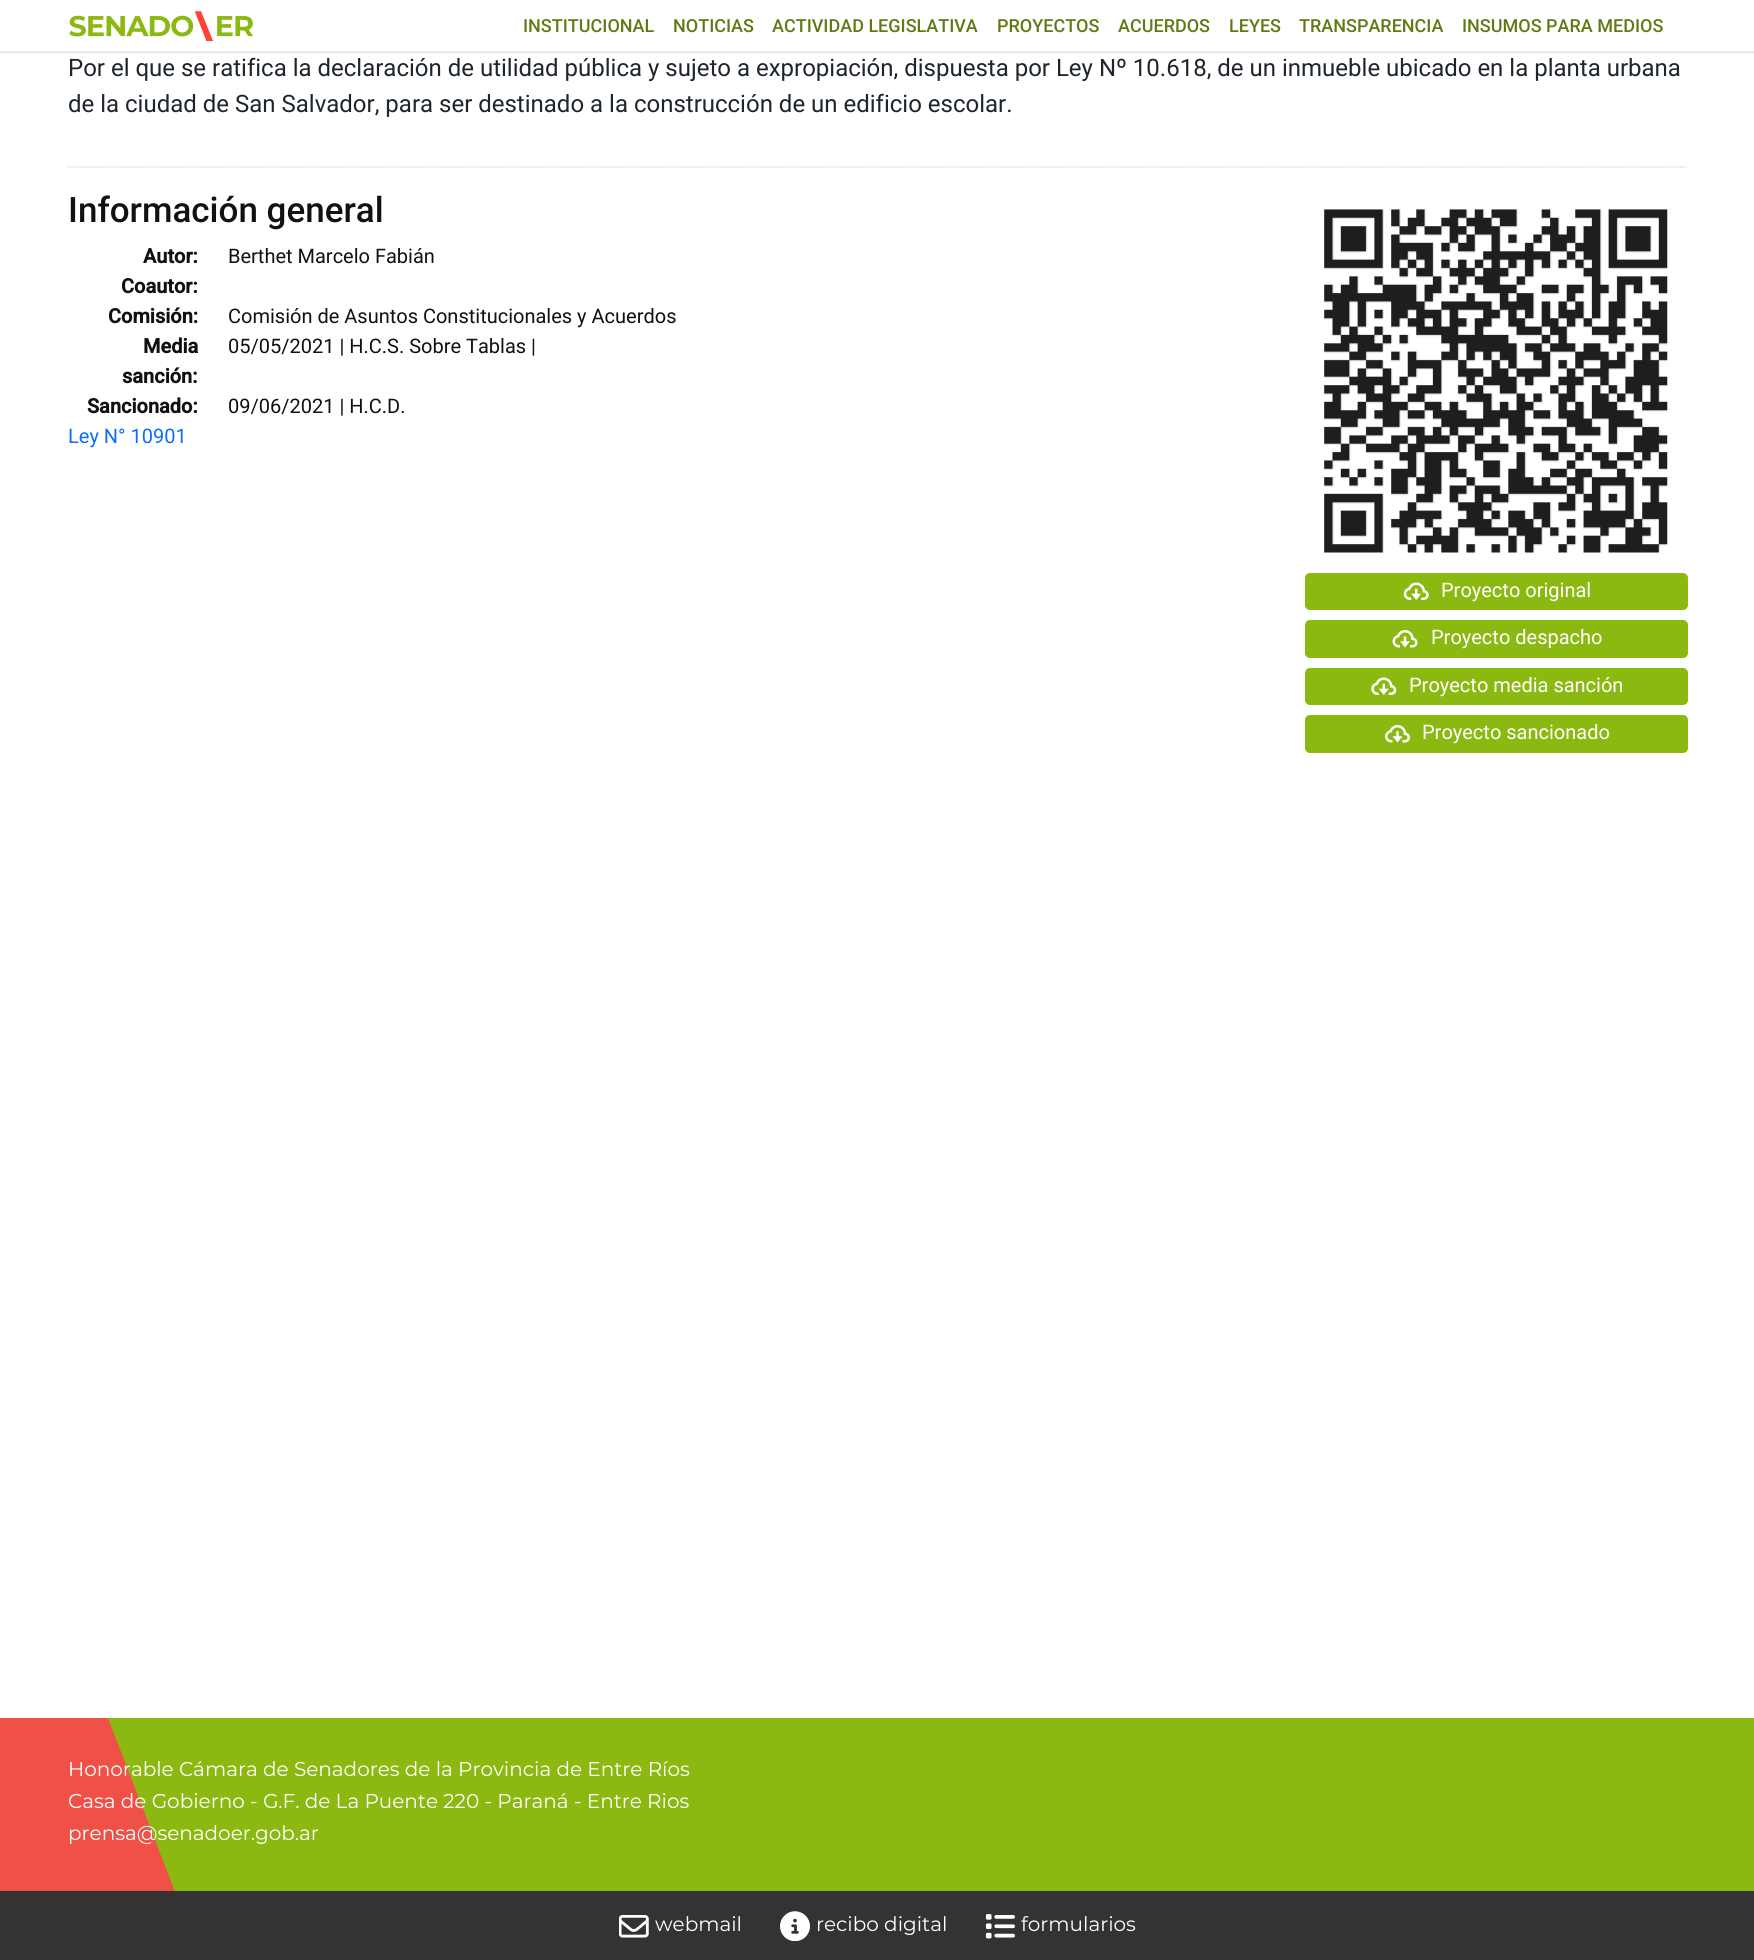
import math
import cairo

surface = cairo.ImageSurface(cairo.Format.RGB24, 1754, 1960)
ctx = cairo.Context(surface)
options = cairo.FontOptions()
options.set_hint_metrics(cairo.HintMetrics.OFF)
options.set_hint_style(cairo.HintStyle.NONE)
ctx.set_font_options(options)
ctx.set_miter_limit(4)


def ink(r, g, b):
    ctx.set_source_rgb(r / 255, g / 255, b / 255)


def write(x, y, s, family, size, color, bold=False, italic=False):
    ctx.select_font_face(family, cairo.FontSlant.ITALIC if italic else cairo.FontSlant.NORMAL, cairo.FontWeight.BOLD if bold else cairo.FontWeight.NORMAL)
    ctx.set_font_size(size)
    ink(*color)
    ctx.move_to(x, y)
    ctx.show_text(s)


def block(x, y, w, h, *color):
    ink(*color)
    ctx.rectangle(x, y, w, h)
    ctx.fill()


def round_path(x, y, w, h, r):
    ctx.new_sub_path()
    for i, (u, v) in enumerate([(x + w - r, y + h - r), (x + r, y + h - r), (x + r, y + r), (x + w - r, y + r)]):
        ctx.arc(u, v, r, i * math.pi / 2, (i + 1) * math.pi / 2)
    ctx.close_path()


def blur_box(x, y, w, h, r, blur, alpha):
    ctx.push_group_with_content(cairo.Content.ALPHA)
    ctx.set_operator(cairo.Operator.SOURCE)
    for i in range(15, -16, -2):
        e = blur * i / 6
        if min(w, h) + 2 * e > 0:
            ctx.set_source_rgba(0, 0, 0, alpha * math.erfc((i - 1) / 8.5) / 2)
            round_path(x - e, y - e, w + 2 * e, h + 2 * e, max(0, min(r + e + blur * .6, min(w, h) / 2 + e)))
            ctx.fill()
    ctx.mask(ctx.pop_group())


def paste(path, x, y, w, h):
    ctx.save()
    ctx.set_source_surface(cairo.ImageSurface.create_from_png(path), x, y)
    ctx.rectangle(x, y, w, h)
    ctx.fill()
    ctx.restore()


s1 = dict(family="Roboto Medium", size=18, color=(95, 122, 20))
s2 = dict(family="Roboto", size=24, color=(30, 37, 44))
s3 = dict(family="Roboto Medium", size=35, color=(17, 17, 17))
s4 = dict(family="Roboto", size=20, color=(17, 17, 17), bold=True)
s5 = dict(family="Roboto", size=20, color=(17, 17, 17))
s6 = dict(family="Roboto", size=20, color=(13, 110, 253))
s7 = dict(family="Roboto", size=20, color=(255, 255, 255))
s8 = dict(family="Montserrat", size=20, color=(255, 255, 255))

ink(255, 255, 255)
ctx.paint()
ink(0, 0, 0)
blur_box(0, 1, 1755, 52, 0, 1, 0.1)
block(0, 0, 1754, 51, 255, 255, 255)
paste("pic1.png", 69, 11, 185, 30)
write(523, 32, "INSTITUCIONAL", **s1)
write(673, 32, "NOTICIAS", **s1)
write(772, 32, "ACTIVIDAD LEGISLATIVA", **s1)
write(997, 32, "PROYECTOS", **s1)
write(1118, 32, "ACUERDOS", **s1)
write(1229, 32, "LEYES", **s1)
write(1299, 32, "TRANSPARENCIA", **s1)
write(1462, 32, "INSUMOS PARA MEDIOS", **s1)
ctx.new_path()
ctx.move_to(67.5, 167)
ctx.line_to(1687.5, 167)
ink(213, 213, 213)
ctx.set_line_width(1.2)
ctx.set_dash([1.25, 1.25])
ctx.stroke()
write(68, 76, "Por el que se ratifica la declaración de utilidad pública y sujeto a expropiación, dispuesta por Ley Nº 10.618, de un inmueble ubicado en la planta urbana", **s2)
write(68, 112, "de la ciudad de San Salvador, para ser destinado a la construcción de un edificio escolar.", **s2)
write(68, 222, "Información general", **s3)
write(143, 263, "Autor:", **s4)
write(228, 263, "Berthet Marcelo Fabián", **s5)
write(121, 293, "Coautor:", **s4)
write(108, 323, "Comisión:", **s4)
write(228, 323, "Comisión de Asuntos Constitucionales y Acuerdos", **s5)
write(143, 353, "Media", **s4)
write(122, 383, "sanción:", **s4)
write(228, 353, "05/05/2021 | H.C.S. Sobre Tablas |", **s5)
write(87, 413, "Sancionado:", **s4)
write(228, 413, "09/06/2021 | H.C.D.", **s5)
write(68, 443, "Ley N° 10901", **s6)
paste("pic2.png", 1324, 209, 344, 344)
ink(139, 185, 17)
round_path(1305, 573, 383, 37, 5)
ctx.fill()
paste("pic3.png", 1403, 582, 26, 18)
write(1441, 597, "Proyecto original", **s7)
ink(139, 185, 17)
round_path(1305, 620, 383, 38, 5)
ctx.fill()
paste("pic4.png", 1392, 630, 26, 18)
write(1431, 644, "Proyecto despacho", **s7)
ink(139, 185, 17)
round_path(1305, 668, 383, 37, 5)
ctx.fill()
paste("pic5.png", 1371, 677, 26, 18)
write(1409, 692, "Proyecto media sanción", **s7)
ink(139, 185, 17)
round_path(1305, 715, 383, 38, 5)
ctx.fill()
paste("pic6.png", 1385, 725, 25, 18)
write(1422, 739, "Proyecto sancionado", **s7)
block(108, 1718, 1646, 173, 139, 185, 17)
ink(240, 81, 71)
ctx.set_fill_rule(cairo.FillRule.EVEN_ODD)
ctx.new_path()
ctx.move_to(0, 1718)
ctx.line_to(108, 1718)
ctx.line_to(201, 1959)
ctx.line_to(0, 1959)
ctx.close_path()
ctx.fill()
write(68, 1776, "Honorable Cámara de Senadores de la Provincia de Entre Ríos", **s8)
write(68, 1808, "Casa de Gobierno - G.F. de La Puente 220 - Paraná - Entre Rios", **s8)
write(68, 1840, "prensa@senadoer.gob.ar", **s8)
block(0, 1891, 1754, 69, 51, 51, 51)
paste("pic7.png", 619, 1915, 30, 23)
write(655, 1931, "webmail", **s8)
paste("pic8.png", 780, 1911, 30, 30)
write(816, 1931, "recibo digital", **s8)
paste("pic9.png", 985, 1914, 30, 25)
write(1021, 1931, "formularios", **s8)
surface.write_to_png("screenshot.png")
